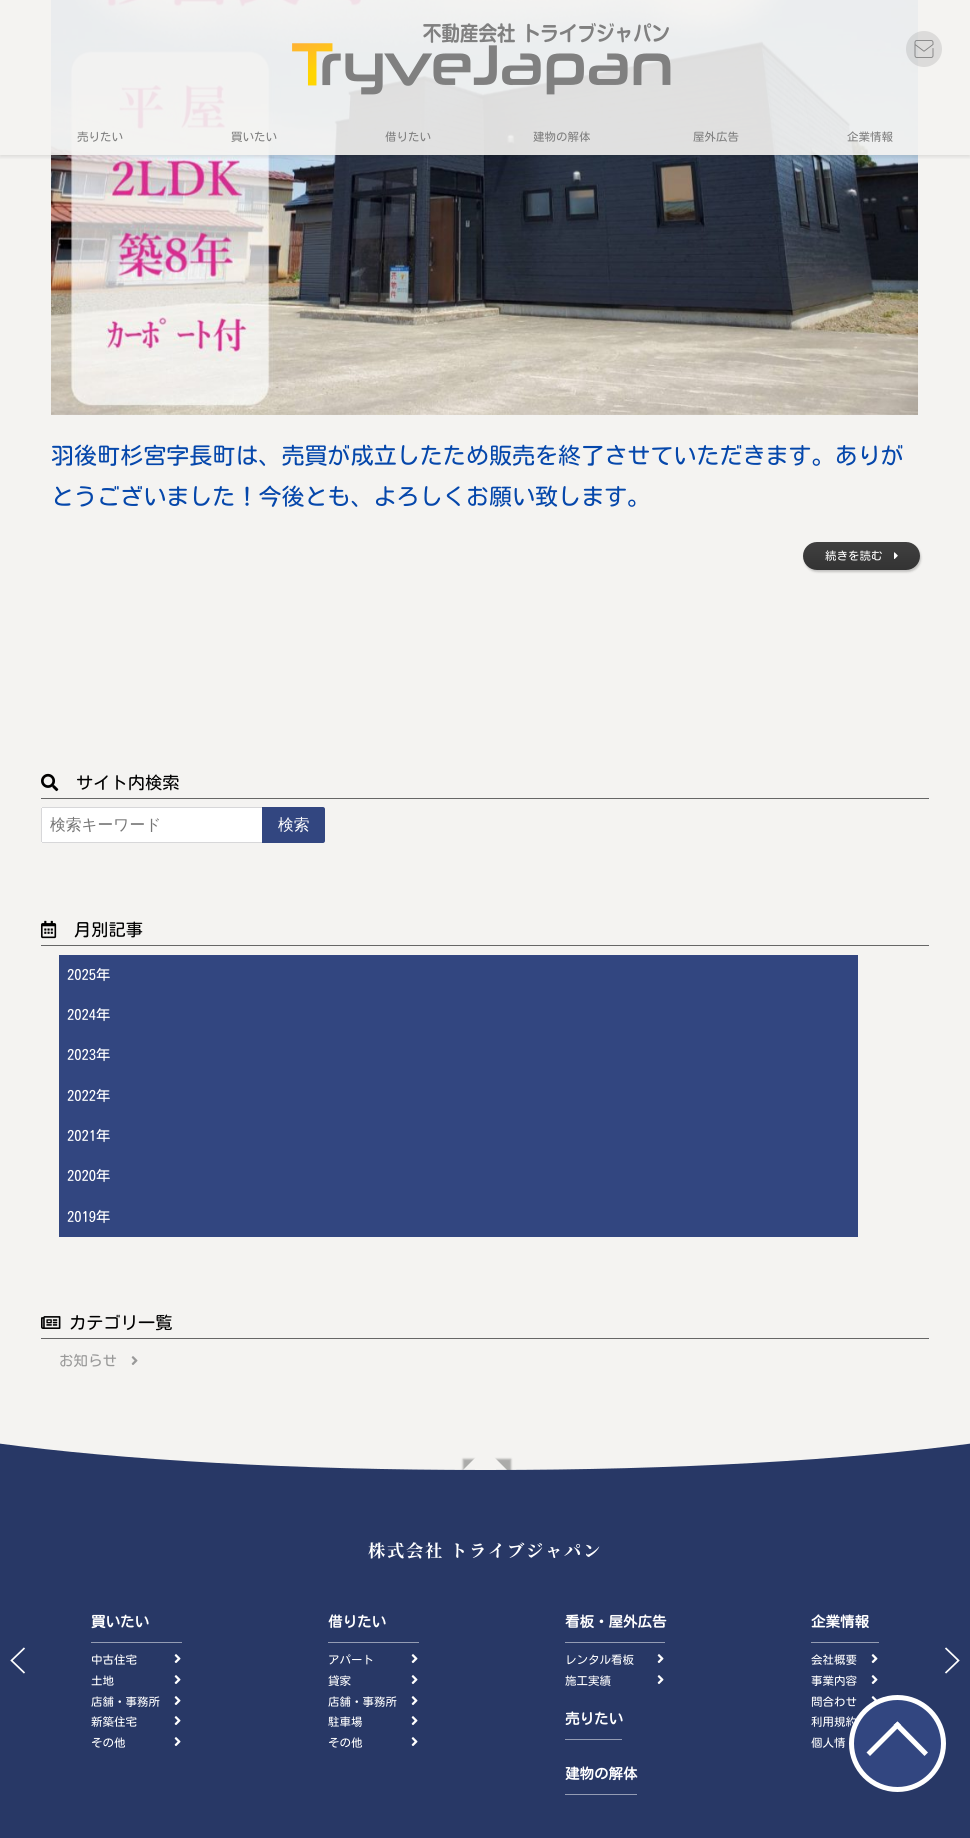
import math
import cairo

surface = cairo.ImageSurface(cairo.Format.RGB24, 970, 1838)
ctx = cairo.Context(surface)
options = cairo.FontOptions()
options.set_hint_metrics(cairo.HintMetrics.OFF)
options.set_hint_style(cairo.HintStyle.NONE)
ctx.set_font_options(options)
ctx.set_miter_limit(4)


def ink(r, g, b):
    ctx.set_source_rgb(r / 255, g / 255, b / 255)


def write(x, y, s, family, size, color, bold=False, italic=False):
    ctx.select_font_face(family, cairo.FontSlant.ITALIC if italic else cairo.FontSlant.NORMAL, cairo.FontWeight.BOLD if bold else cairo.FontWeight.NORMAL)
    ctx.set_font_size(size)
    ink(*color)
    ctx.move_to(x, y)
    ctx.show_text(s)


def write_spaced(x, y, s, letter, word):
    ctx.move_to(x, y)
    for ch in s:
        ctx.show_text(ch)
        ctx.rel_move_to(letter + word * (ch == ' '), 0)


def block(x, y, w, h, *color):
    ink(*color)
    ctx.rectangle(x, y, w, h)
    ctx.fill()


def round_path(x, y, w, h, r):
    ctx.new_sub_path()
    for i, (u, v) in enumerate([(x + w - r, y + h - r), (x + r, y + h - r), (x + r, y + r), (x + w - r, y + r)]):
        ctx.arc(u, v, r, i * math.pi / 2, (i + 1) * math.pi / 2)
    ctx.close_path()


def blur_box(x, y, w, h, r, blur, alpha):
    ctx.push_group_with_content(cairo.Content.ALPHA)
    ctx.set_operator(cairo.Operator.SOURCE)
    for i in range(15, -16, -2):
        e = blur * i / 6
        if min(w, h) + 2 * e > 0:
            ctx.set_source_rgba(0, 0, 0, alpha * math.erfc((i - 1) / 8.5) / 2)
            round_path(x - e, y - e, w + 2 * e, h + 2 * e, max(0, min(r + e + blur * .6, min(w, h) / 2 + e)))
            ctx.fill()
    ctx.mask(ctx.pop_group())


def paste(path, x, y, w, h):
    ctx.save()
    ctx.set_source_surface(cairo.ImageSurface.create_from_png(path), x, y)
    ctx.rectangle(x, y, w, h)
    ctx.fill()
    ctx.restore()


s1 = dict(family="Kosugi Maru", size=11.5, color=(128, 128, 128))
s2 = dict(family="Kosugi Maru", size=23.05, color=(5, 71, 171))
s3 = dict(family="Kosugi Maru", size=11.5, color=(255, 255, 255))
s4 = dict(family="Kosugi Maru", size=17.25, color=(0, 0, 0))
s5 = dict(family="WenQuanYi Zen Hei Medium", size=15.75, color=(117, 117, 117))
s6 = dict(family="WenQuanYi Zen Hei Medium", size=15.75, color=(255, 255, 255))
s7 = dict(family="Kosugi Maru", size=14.5, color=(255, 255, 255))
s8 = dict(family="Kosugi Maru", size=14.5, color=(153, 153, 153))
s9 = dict(family="Kosugi Maru", size=14.5, color=(255, 255, 255), bold=True)

ink(244, 243, 241)
ctx.paint()
paste("pic3.png", 51, 0, 867, 415)
ctx.save()
ctx.rectangle(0, 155, 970, 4)
ctx.clip()
ink(0, 0, 0)
blur_box(0, 2, 970, 155, 0, 2, 0.1)
ctx.restore()
ctx.set_source_rgba(0.957, 0.953, 0.945, 0.9)
ctx.rectangle(51, 0, 867, 155)
ctx.fill()
ctx.set_source_rgba(0.502, 0.502, 0.502, 0.2)
ctx.arc(924, 49, 18, 0, 2 * math.pi)
ctx.fill()
paste("pic1.png", 914, 40, 20, 18)
paste("pic2.png", 292, 23, 379, 72)
write(77, 141, "売りたい", **s1)
write(231, 141, "買いたい", **s1)
write(385, 141, "借りたい", **s1)
write(533, 141, "建物の解体", **s1)
write(693, 141, "屋外広告", **s1)
write(847, 141, "企業情報", **s1)
write(51, 464, "羽後町杉宮字長町は、売買が成立したため販売を終了させていただきます。ありが", **s2)
write(51, 505, "とうございました！今後とも、よろしくお願い致します。", **s2)
ink(0, 0, 0)
blur_box(804, 544, 117, 28, 14, 1, 0.2)
gradient = cairo.LinearGradient(862, 570, 862, 542)
gradient.add_color_stop_rgba(0, 0.2, 0.2, 0.2, 1)
gradient.add_color_stop_rgba(1, 0.251, 0.251, 0.251, 1)
ctx.set_source(gradient)
round_path(803, 542, 117, 28, 14)
ctx.fill()
write(825, 560, "続きを読む", **s3)
paste("pic4.png", 894, 552, 4, 7)
block(41, 798, 888, 1, 102, 102, 102)
paste("pic5.png", 41, 773, 18, 19)
write(76, 789, "サイト内検索", **s4)
ink(255, 255, 255)
ctx.new_path()
ctx.move_to(43, 807)
ctx.line_to(262, 807)
ctx.line_to(262, 843)
ctx.line_to(43, 843)
ctx.curve_to(42, 843, 41, 842, 41, 841)
ctx.line_to(41, 809)
ctx.curve_to(41, 808, 42, 807, 43, 807)
ctx.close_path()
ctx.fill()
block(42, 807, 220, 1, 215, 215, 217)
block(42, 842, 220, 1, 215, 215, 217)
block(41, 808, 1, 34, 215, 215, 217)
write(50, 830, "検索キーワード", **s5)
ink(50, 70, 128)
ctx.new_path()
ctx.move_to(262, 807)
ctx.line_to(323, 807)
ctx.curve_to(324, 807, 325, 808, 325, 809)
ctx.line_to(325, 841)
ctx.curve_to(325, 842, 324, 843, 323, 843)
ctx.line_to(262, 843)
ctx.close_path()
ctx.fill()
write(278, 830, "検索", **s6)
block(41, 945, 888, 1, 102, 102, 102)
paste("pic6.png", 41, 920, 16, 19)
write(74, 936, "月別記事", **s4)
block(59, 955, 799, 282, 50, 70, 128)
write(67, 980, "2025年", **s7)
write(67, 1020, "2024年", **s7)
write(67, 1060, "2023年", **s7)
write(67, 1101, "2022年", **s7)
write(67, 1141, "2021年", **s7)
write(67, 1181, "2020年", **s7)
write(67, 1222, "2019年", **s7)
block(41, 1338, 888, 1, 102, 102, 102)
paste("pic7.png", 41, 1316, 20, 13)
write(69, 1329, "カテゴリ一覧", **s4)
write(59, 1366, "お知らせ", **s8)
paste("pic8.png", 131, 1356, 7, 9)
ink(0, 0, 0)
blur_box(463, 1459, 48, 49, 0, 1, 0.3)
ink(244, 243, 241)
ctx.new_path()
ctx.move_to(485, 1448)
ctx.line_to(519, 1482)
ctx.line_to(485, 1516)
ctx.line_to(451, 1482)
ctx.close_path()
ctx.fill()
block(0, 1485, 970, 353, 40, 56, 102)
ctx.new_path()
ctx.move_to(486, 1470)
ctx.line_to(485, 1470)
ctx.curve_to(294, 1470, 121, 1460, -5, 1443)
ctx.line_to(-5, 1485)
ctx.line_to(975, 1485)
ctx.line_to(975, 1443)
ctx.curve_to(849, 1460, 677, 1470, 486, 1470)
ctx.close_path()
ctx.fill()
ctx.new_path()
ctx.move_to(24.5, 1673)
ctx.line_to(11.5, 1660.5)
ctx.line_to(24.5, 1648)
ink(255, 255, 255)
ctx.set_line_width(1.7)
ctx.stroke()
ctx.select_font_face("Noto Serif JP", cairo.FontSlant.NORMAL, cairo.FontWeight.BOLD)
ctx.set_font_size(17.25)
write_spaced(368, 1557, "株式会社 トライブジャパン", 1.75, 0)
block(91, 1642, 91, 1, 148, 156, 179)
write(91, 1627, "買いたい", **s9)
write(91, 1664, "中古住宅", **s3)
paste("pic9.png", 174, 1654, 7, 9)
write(91, 1685, "土地", **s3)
paste("pic9.png", 174, 1675, 7, 9)
write(91, 1706, "店舗・事務所", **s3)
paste("pic9.png", 174, 1696, 7, 9)
write(91, 1726, "新築住宅", **s3)
paste("pic9.png", 174, 1716, 7, 9)
write(91, 1747, "その他", **s3)
paste("pic9.png", 174, 1737, 7, 9)
block(328, 1642, 91, 1, 148, 156, 179)
write(328, 1627, "借りたい", **s9)
write(328, 1664, "アパート", **s3)
paste("pic9.png", 411, 1654, 7, 9)
write(328, 1685, "貸家", **s3)
paste("pic9.png", 411, 1675, 7, 9)
write(328, 1706, "店舗・事務所", **s3)
paste("pic9.png", 411, 1696, 7, 9)
write(328, 1726, "駐車場", **s3)
paste("pic9.png", 411, 1716, 7, 9)
write(328, 1747, "その他", **s3)
paste("pic9.png", 411, 1737, 7, 9)
block(565, 1642, 100, 1, 148, 156, 179)
write(565, 1627, "看板・屋外広告", **s9)
write(565, 1664, "レンタル看板", **s3)
paste("pic9.png", 657, 1654, 7, 9)
write(565, 1685, "施工実績", **s3)
paste("pic9.png", 657, 1675, 7, 9)
block(565, 1739, 57, 1, 148, 156, 179)
write(565, 1724, "売りたい", **s9)
block(565, 1794, 72, 1, 148, 156, 179)
write(565, 1779, "建物の解体", **s9)
block(811, 1642, 68, 1, 148, 156, 179)
write(811, 1627, "企業情報", **s9)
write(811, 1664, "会社概要", **s3)
paste("pic9.png", 871, 1654, 7, 9)
write(811, 1685, "事業内容", **s3)
paste("pic9.png", 871, 1675, 7, 9)
write(811, 1706, "問合わせ", **s3)
paste("pic10.png", 871, 1696, 6, 7)
write(811, 1726, "利用規約", **s3)
write(811, 1747, "個人情", **s3)
ctx.new_path()
ctx.move_to(945.5, 1648)
ctx.line_to(958.5, 1660.5)
ctx.line_to(945.5, 1673)
ctx.stroke()
ink(50, 70, 128)
ctx.arc(897.5, 1743.5, 46, 0, 2 * math.pi)
ctx.fill_preserve()
ink(255, 255, 255)
ctx.set_line_width(5)
ctx.stroke()
ctx.new_path()
ctx.move_to(866.5, 1752.5)
ctx.line_to(897.5, 1721.5)
ctx.line_to(901, 1725)
ctx.line_to(870, 1756)
ctx.close_path()
ctx.fill()
ctx.new_path()
ctx.move_to(893.5, 1725)
ctx.line_to(897.5, 1721.5)
ctx.line_to(928, 1752.5)
ctx.line_to(924.5, 1756)
ctx.close_path()
ctx.fill()
surface.write_to_png("screenshot.png")
